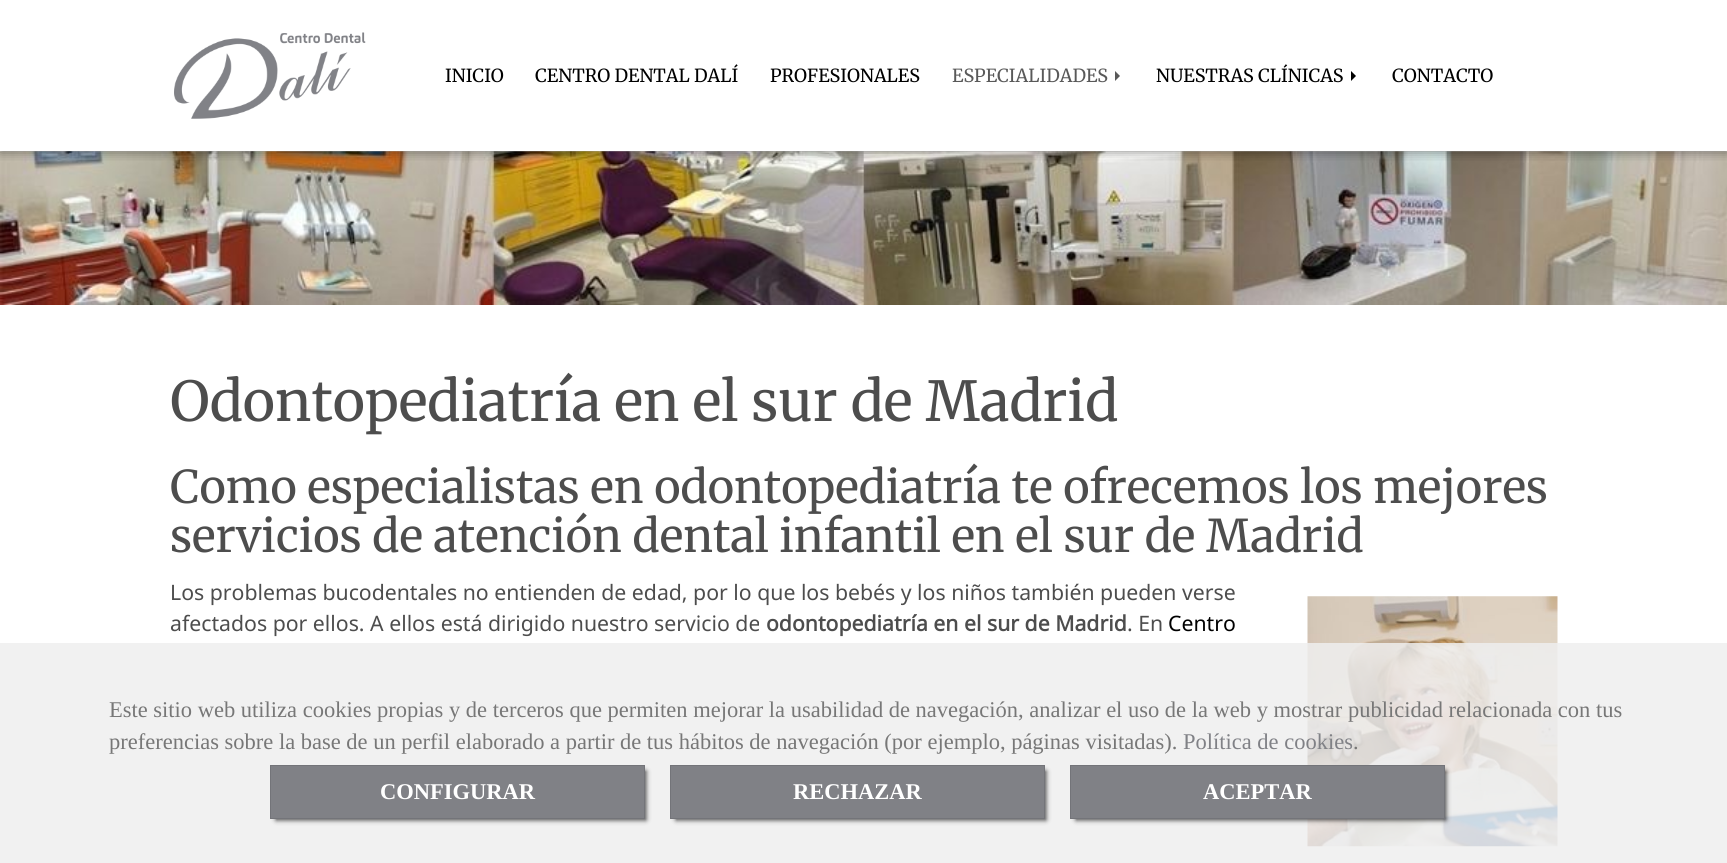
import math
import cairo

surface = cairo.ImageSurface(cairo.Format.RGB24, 1727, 863)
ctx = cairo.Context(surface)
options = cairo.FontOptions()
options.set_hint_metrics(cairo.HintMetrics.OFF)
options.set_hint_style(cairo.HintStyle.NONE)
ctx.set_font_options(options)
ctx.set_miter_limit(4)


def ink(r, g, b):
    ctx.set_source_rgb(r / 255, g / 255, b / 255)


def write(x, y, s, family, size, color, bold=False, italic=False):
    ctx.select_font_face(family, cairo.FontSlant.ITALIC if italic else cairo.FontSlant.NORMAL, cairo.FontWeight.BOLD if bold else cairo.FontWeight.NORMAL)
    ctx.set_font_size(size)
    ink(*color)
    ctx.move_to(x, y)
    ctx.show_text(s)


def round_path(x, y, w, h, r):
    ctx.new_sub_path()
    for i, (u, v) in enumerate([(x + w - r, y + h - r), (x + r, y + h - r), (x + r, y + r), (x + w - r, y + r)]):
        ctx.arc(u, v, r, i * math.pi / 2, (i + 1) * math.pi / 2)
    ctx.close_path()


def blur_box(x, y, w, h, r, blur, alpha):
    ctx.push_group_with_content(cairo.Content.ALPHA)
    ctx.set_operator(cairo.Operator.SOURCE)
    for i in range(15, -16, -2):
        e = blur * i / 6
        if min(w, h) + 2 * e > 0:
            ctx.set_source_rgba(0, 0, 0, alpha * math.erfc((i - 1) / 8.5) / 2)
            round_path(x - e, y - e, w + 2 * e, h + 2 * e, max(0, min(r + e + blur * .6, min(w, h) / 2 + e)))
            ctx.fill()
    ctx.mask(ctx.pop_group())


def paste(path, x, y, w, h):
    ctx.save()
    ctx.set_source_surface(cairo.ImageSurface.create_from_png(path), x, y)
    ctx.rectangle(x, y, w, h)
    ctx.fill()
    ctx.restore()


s1 = dict(family="Merriweather Light", size=18, color=(0, 0, 0))
s2 = dict(family="Merriweather Light", size=18, color=(89, 89, 89))
s3 = dict(family="Merriweather Light", size=55, color=(77, 77, 77))
s4 = dict(family="Merriweather Light", size=45, color=(77, 77, 77))
s5 = dict(family="Noto Sans", size=21.25, color=(77, 77, 77))
s6 = dict(family="Noto Sans", size=21.25, color=(77, 77, 77), bold=True)
s7 = dict(family="Noto Sans", size=21.25, color=(0, 0, 0))
s8 = dict(family="Liberation Serif", size=22.5, color=(119, 119, 119))
s9 = dict(family="Liberation Serif", size=22.5, color=(128, 129, 134))
s10 = dict(family="Liberation Serif", size=22.5, color=(255, 255, 255), bold=True)

ink(255, 255, 255)
ctx.paint()
paste("pic2.png", 0, 151, 1727, 154)
ctx.save()
ctx.rectangle(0, 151, 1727, 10)
ctx.clip()
ink(0, 0, 0)
blur_box(0, 0, 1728, 151, 0, 6, 0.5)
ctx.restore()
paste("pic1.png", 174, 32, 192, 87)
write(445, 82, "INICIO", **s1)
write(535, 82, "CENTRO DENTAL DALÍ", **s1)
write(770, 82, "PROFESIONALES", **s1)
write(952, 82, "ESPECIALIDADES", **s2)
ctx.new_path()
ctx.move_to(1115, 81)
ctx.line_to(1115, 71)
ctx.line_to(1120, 76)
ctx.close_path()
ctx.fill()
write(1156, 82, "NUESTRAS CLÍNICAS", **s1)
ctx.new_path()
ctx.move_to(1351, 81)
ctx.line_to(1351, 71)
ctx.line_to(1356, 76)
ctx.close_path()
ctx.fill()
write(1392, 82, "CONTACTO", **s1)
write(170, 421, "Odontopediatría en el sur de Madrid", **s3)
write(170, 503, "Como especialistas en odontopediatría te ofrecemos los mejores", **s4)
write(170, 552, "servicios de atención dental infantil en el sur de Madrid", **s4)
write(170, 600, "Los problemas bucodentales no entienden de edad, por lo que los bebés y los niños también pueden verse", **s5)
paste("pic3.png", 1307, 596, 251, 251)
write(170, 631, "afectados por ellos. A ellos está dirigido nuestro servicio de", **s5)
write(766, 631, "odontopediatría en el sur de Madrid", **s6)
write(1127, 631, ". En", **s5)
write(1168, 631, "Centro", **s7)
ctx.set_source_rgba(0.933, 0.933, 0.933, 0.85)
ctx.rectangle(0, 643, 1727, 220)
ctx.fill()
write(109, 717, "Este sitio web utiliza cookies propias y de terceros que permiten mejorar la usabilidad de navegación, analizar el uso de la web y mostrar publicidad relacionada con tus", **s8)
write(109, 749, "preferencias sobre la base de un perfil elaborado a partir de tus hábitos de navegación (por ejemplo, páginas visitadas).", **s8)
write(1183, 749, "Política de cookies", **s9)
write(1353, 749, ".", **s8)
ink(0, 0, 0)
blur_box(276, 771, 370, 49, 0, 2.5, 0.75)
ink(128, 129, 134)
ctx.rectangle(270.5, 765.5, 374, 53)
ctx.fill_preserve()
ink(115, 116, 121)
ctx.set_line_width(1)
ctx.stroke()
write(380, 799, "CONFIGURAR", **s10)
ink(0, 0, 0)
blur_box(676, 771, 370, 49, 0, 2.5, 0.75)
ink(128, 129, 134)
ctx.rectangle(670.5, 765.5, 374, 53)
ctx.fill_preserve()
ink(115, 116, 121)
ctx.stroke()
write(793, 799, "RECHAZAR", **s10)
ink(0, 0, 0)
blur_box(1076, 771, 370, 49, 0, 2.5, 0.75)
ink(128, 129, 134)
ctx.rectangle(1070.5, 765.5, 374, 53)
ctx.fill_preserve()
ink(115, 116, 121)
ctx.stroke()
write(1203, 799, "ACEPTAR", **s10)
surface.write_to_png("screenshot.png")
